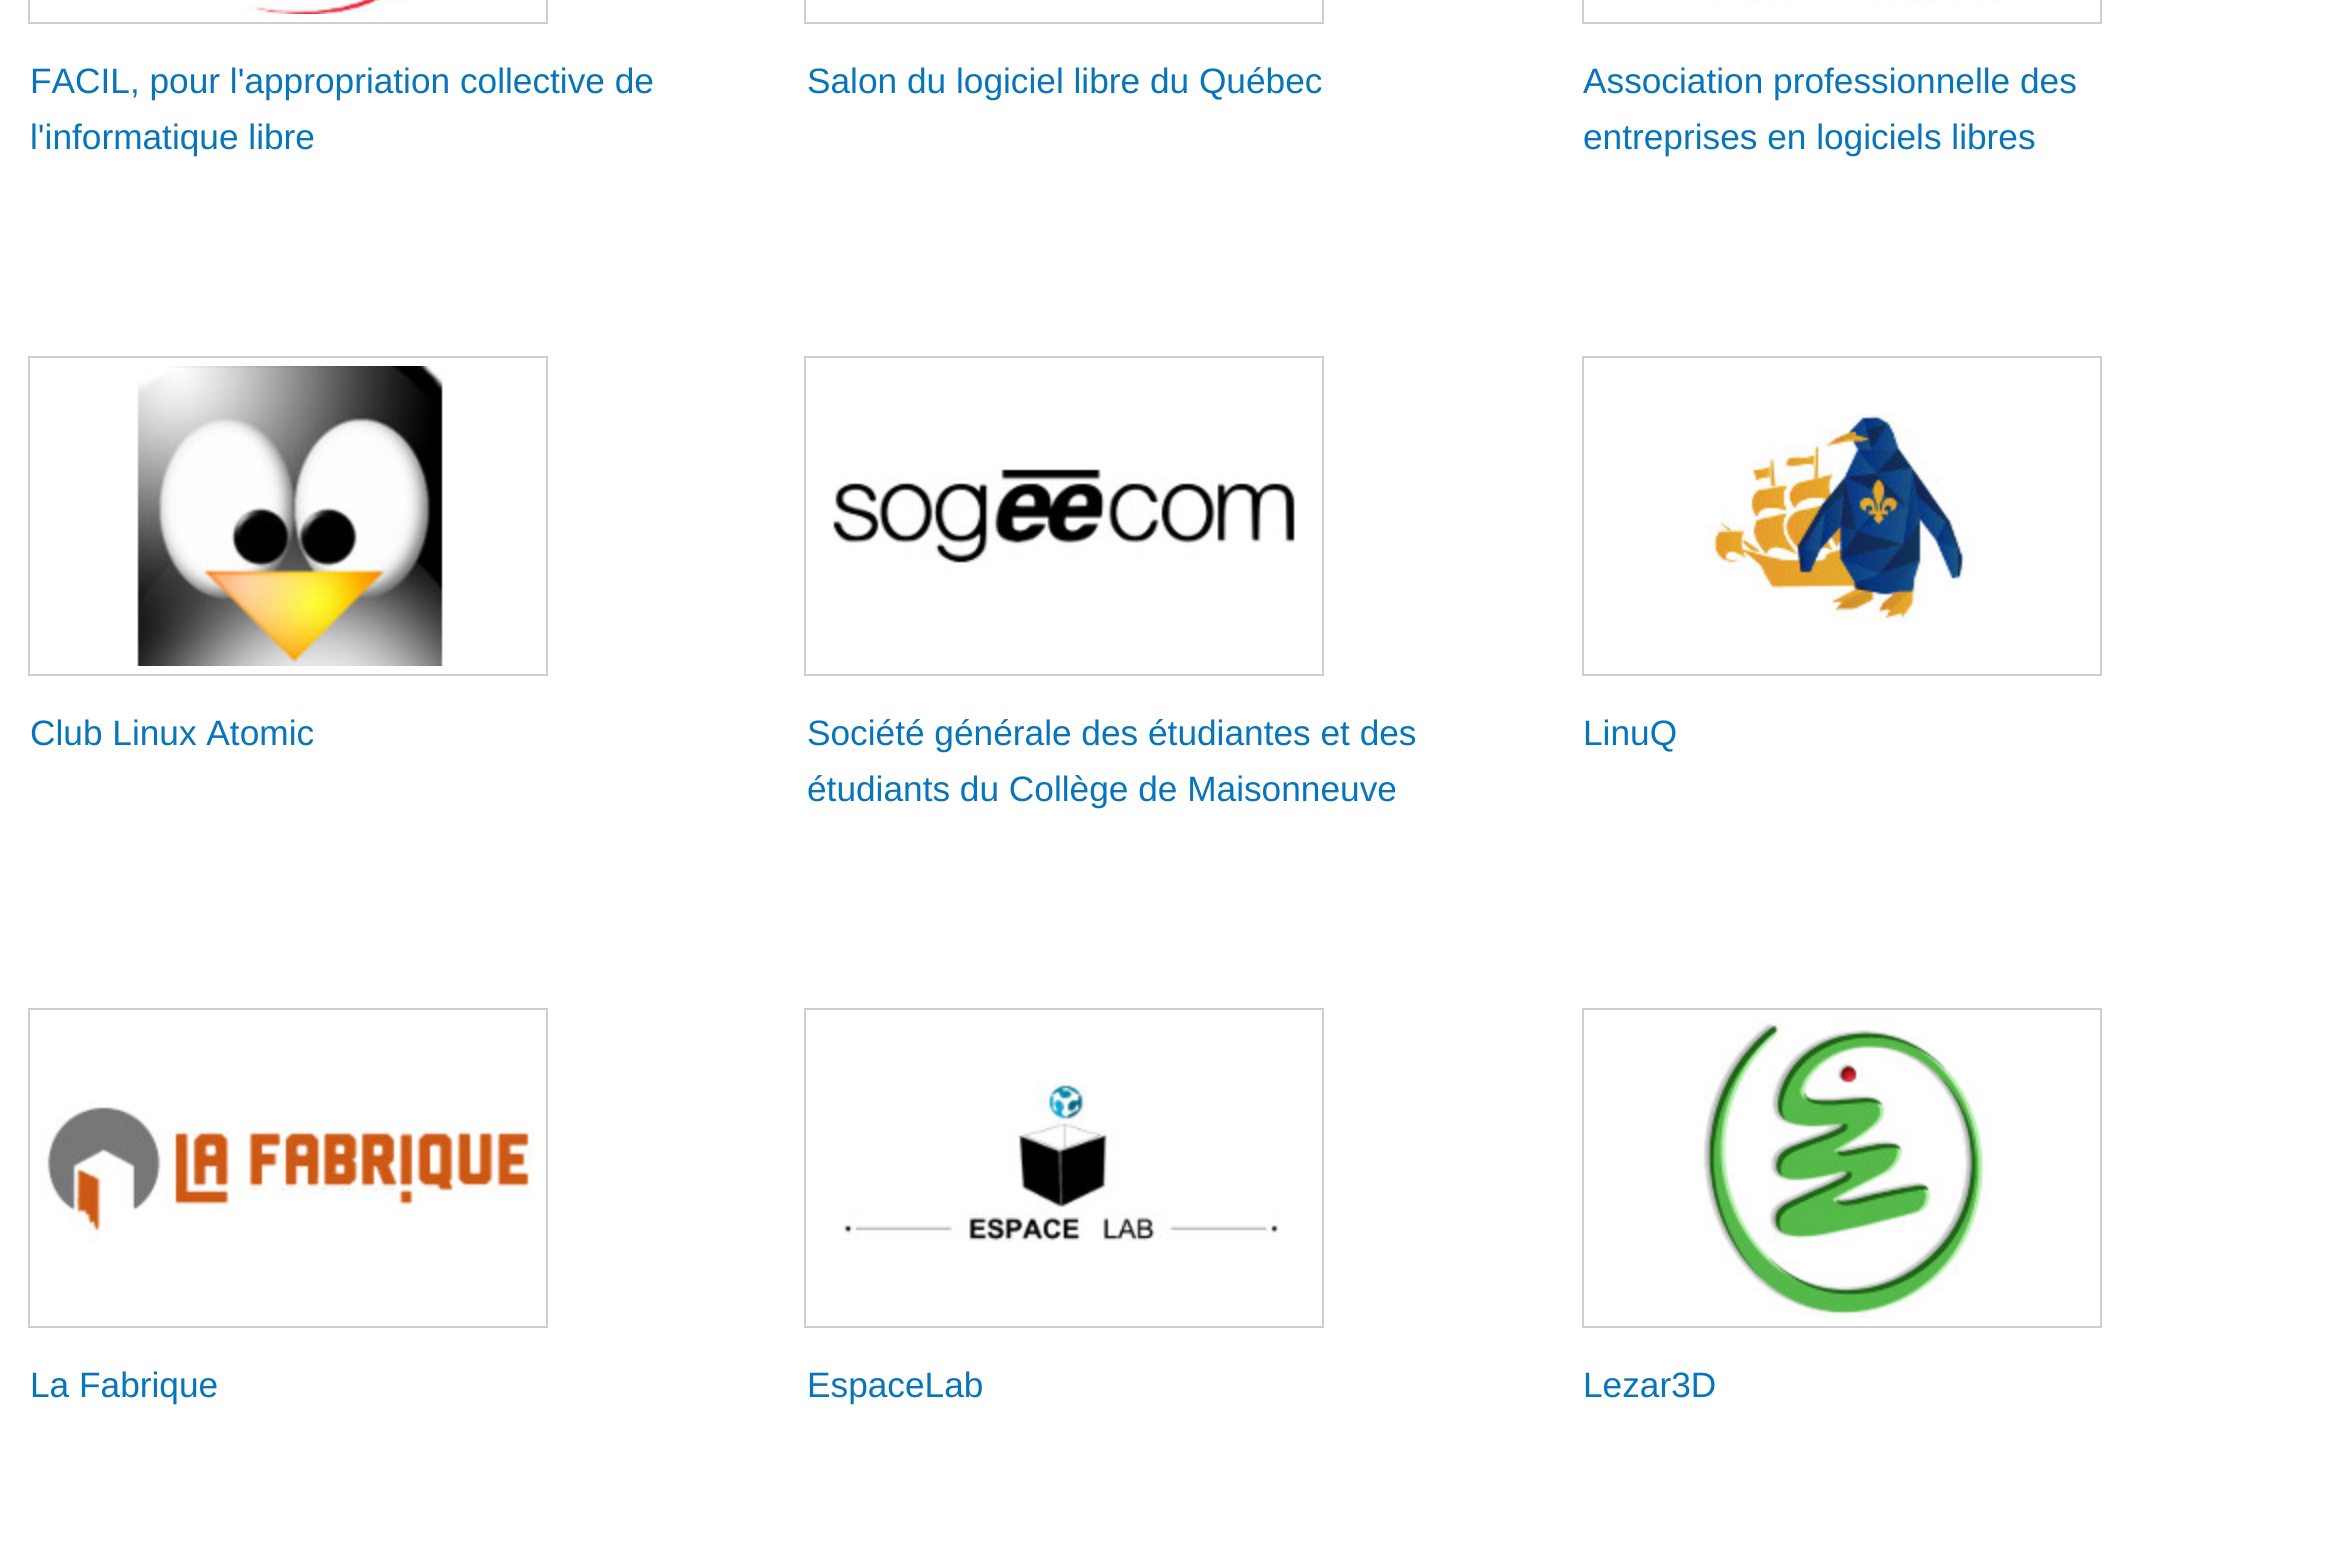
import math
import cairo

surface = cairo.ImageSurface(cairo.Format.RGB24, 2330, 1561)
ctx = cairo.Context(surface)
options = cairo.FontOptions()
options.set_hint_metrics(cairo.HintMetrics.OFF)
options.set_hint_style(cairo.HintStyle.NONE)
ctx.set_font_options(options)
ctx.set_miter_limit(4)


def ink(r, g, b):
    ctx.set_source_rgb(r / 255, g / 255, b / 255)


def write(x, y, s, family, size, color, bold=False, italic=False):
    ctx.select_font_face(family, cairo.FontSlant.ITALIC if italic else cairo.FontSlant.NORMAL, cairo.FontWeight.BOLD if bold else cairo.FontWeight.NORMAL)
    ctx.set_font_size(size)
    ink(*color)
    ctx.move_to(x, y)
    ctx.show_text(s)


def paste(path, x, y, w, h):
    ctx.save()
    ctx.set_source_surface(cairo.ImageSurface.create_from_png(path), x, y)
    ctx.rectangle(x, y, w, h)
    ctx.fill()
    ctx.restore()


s1 = dict(family="Liberation Sans", size=35.25, color=(7, 117, 186))

ink(255, 255, 255)
ctx.paint()
ctx.rectangle(29, -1, 518, 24)
ink(206, 206, 206)
ctx.stroke()
paste("pic1.png", 246, 0, 160, 14)
write(30, 93, "FACIL, pour l'appropriation collective de", **s1)
write(30, 149, "l'informatique libre", **s1)
ctx.rectangle(805, -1, 518, 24)
ink(206, 206, 206)
ctx.stroke()
write(807, 93, "Salon du logiciel libre du Québec", **s1)
ctx.rectangle(1583, -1, 518, 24)
ink(206, 206, 206)
ctx.stroke()
paste("pic2.png", 1712, 0, 288, 2)
write(1583, 93, "Association professionnelle des", **s1)
write(1583, 149, "entreprises en logiciels libres", **s1)
ctx.rectangle(29, 357, 518, 318)
ink(206, 206, 206)
ctx.stroke()
paste("pic3.png", 137, 366, 306, 300)
write(30, 745, "Club Linux Atomic", **s1)
ctx.rectangle(805, 357, 518, 318)
ink(206, 206, 206)
ctx.stroke()
paste("pic4.png", 832, 464, 463, 106)
write(807, 745, "Société générale des étudiantes et des", **s1)
write(807, 801, "étudiants du Collège de Maisonneuve", **s1)
ctx.rectangle(1583, 357, 518, 318)
ink(206, 206, 206)
ctx.stroke()
paste("pic5.png", 1704, 414, 272, 208)
write(1583, 745, "LinuQ", **s1)
ctx.rectangle(29, 1009, 518, 318)
ink(206, 206, 206)
ctx.stroke()
paste("pic6.png", 38, 1102, 496, 140)
write(30, 1397, "La Fabrique", **s1)
ctx.rectangle(805, 1009, 518, 318)
ink(206, 206, 206)
ctx.stroke()
paste("pic7.png", 842, 1082, 437, 160)
write(807, 1397, "EspaceLab", **s1)
ctx.rectangle(1583, 1009, 518, 318)
ink(206, 206, 206)
ctx.stroke()
paste("pic8.png", 1703, 1018, 287, 300)
write(1583, 1397, "Lezar3D", **s1)
surface.write_to_png("screenshot.png")
